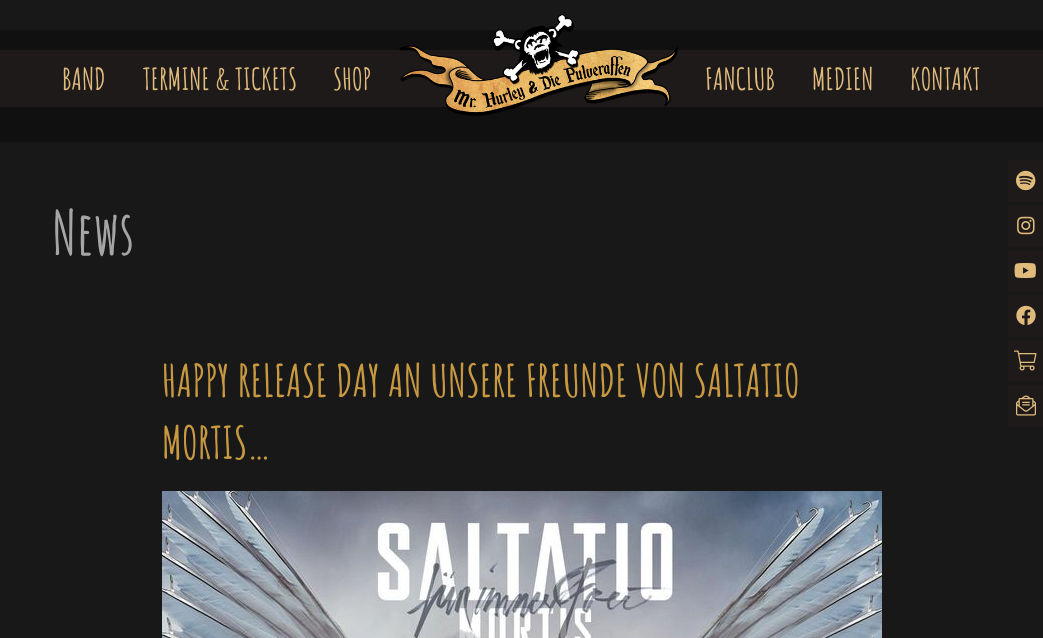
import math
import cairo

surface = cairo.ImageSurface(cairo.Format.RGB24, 1043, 638)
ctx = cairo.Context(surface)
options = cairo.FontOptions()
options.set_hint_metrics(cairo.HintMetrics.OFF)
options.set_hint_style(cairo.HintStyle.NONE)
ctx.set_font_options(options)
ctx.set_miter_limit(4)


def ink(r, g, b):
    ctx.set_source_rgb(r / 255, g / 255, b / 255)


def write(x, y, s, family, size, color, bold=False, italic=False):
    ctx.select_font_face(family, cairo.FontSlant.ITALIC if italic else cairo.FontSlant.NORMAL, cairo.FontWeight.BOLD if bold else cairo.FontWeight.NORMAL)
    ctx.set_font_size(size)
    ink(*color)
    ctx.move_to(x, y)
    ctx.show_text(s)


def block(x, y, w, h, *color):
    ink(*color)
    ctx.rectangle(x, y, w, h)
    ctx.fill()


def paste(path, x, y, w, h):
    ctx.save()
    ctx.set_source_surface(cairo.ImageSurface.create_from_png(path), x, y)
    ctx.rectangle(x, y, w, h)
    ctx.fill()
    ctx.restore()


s1 = dict(family="Amatic SC", size=30, color=(225, 187, 124), bold=True)
s2 = dict(family="Amatic SC", size=60, color=(165, 165, 165), bold=True)
s3 = dict(family="Amatic SC", size=44.4, color=(200, 153, 65), bold=True)

ink(24, 24, 24)
ctx.paint()
block(0, 30, 1043, 112, 16, 16, 16)
block(0, 50, 1043, 57, 29, 26, 25)
write(62, 90, "BAND", **s1)
write(143, 90, "TERMINE & TICKETS", **s1)
write(333, 90, "SHOP", **s1)
paste("pic1.png", 399, 13, 279, 103)
write(705, 90, "FANCLUB", **s1)
write(812, 90, "MEDIEN", **s1)
write(910, 90, "KONTAKT", **s1)
write(52, 255, "News", **s2)
write(162, 397, "HAPPY RELEASE DAY AN UNSERE FREUNDE VON SALTATIO", **s3)
write(162, 459, "MORTIS…", **s3)
paste("pic2.png", 162, 491, 720, 147)
block(1008, 160, 35, 42, 29, 26, 25)
paste("pic3.png", 1016, 170, 20, 21)
block(1008, 205, 35, 42, 29, 26, 25)
paste("pic4.png", 1017, 216, 18, 19)
block(1008, 250, 35, 42, 29, 26, 25)
paste("pic5.png", 1014, 263, 22, 15)
block(1008, 295, 35, 42, 29, 26, 25)
paste("pic6.png", 1016, 305, 20, 20)
block(1008, 340, 35, 42, 29, 26, 25)
paste("pic7.png", 1014, 350, 23, 21)
block(1008, 385, 35, 42, 29, 26, 25)
paste("pic8.png", 1016, 395, 20, 21)
surface.write_to_png("screenshot.png")
